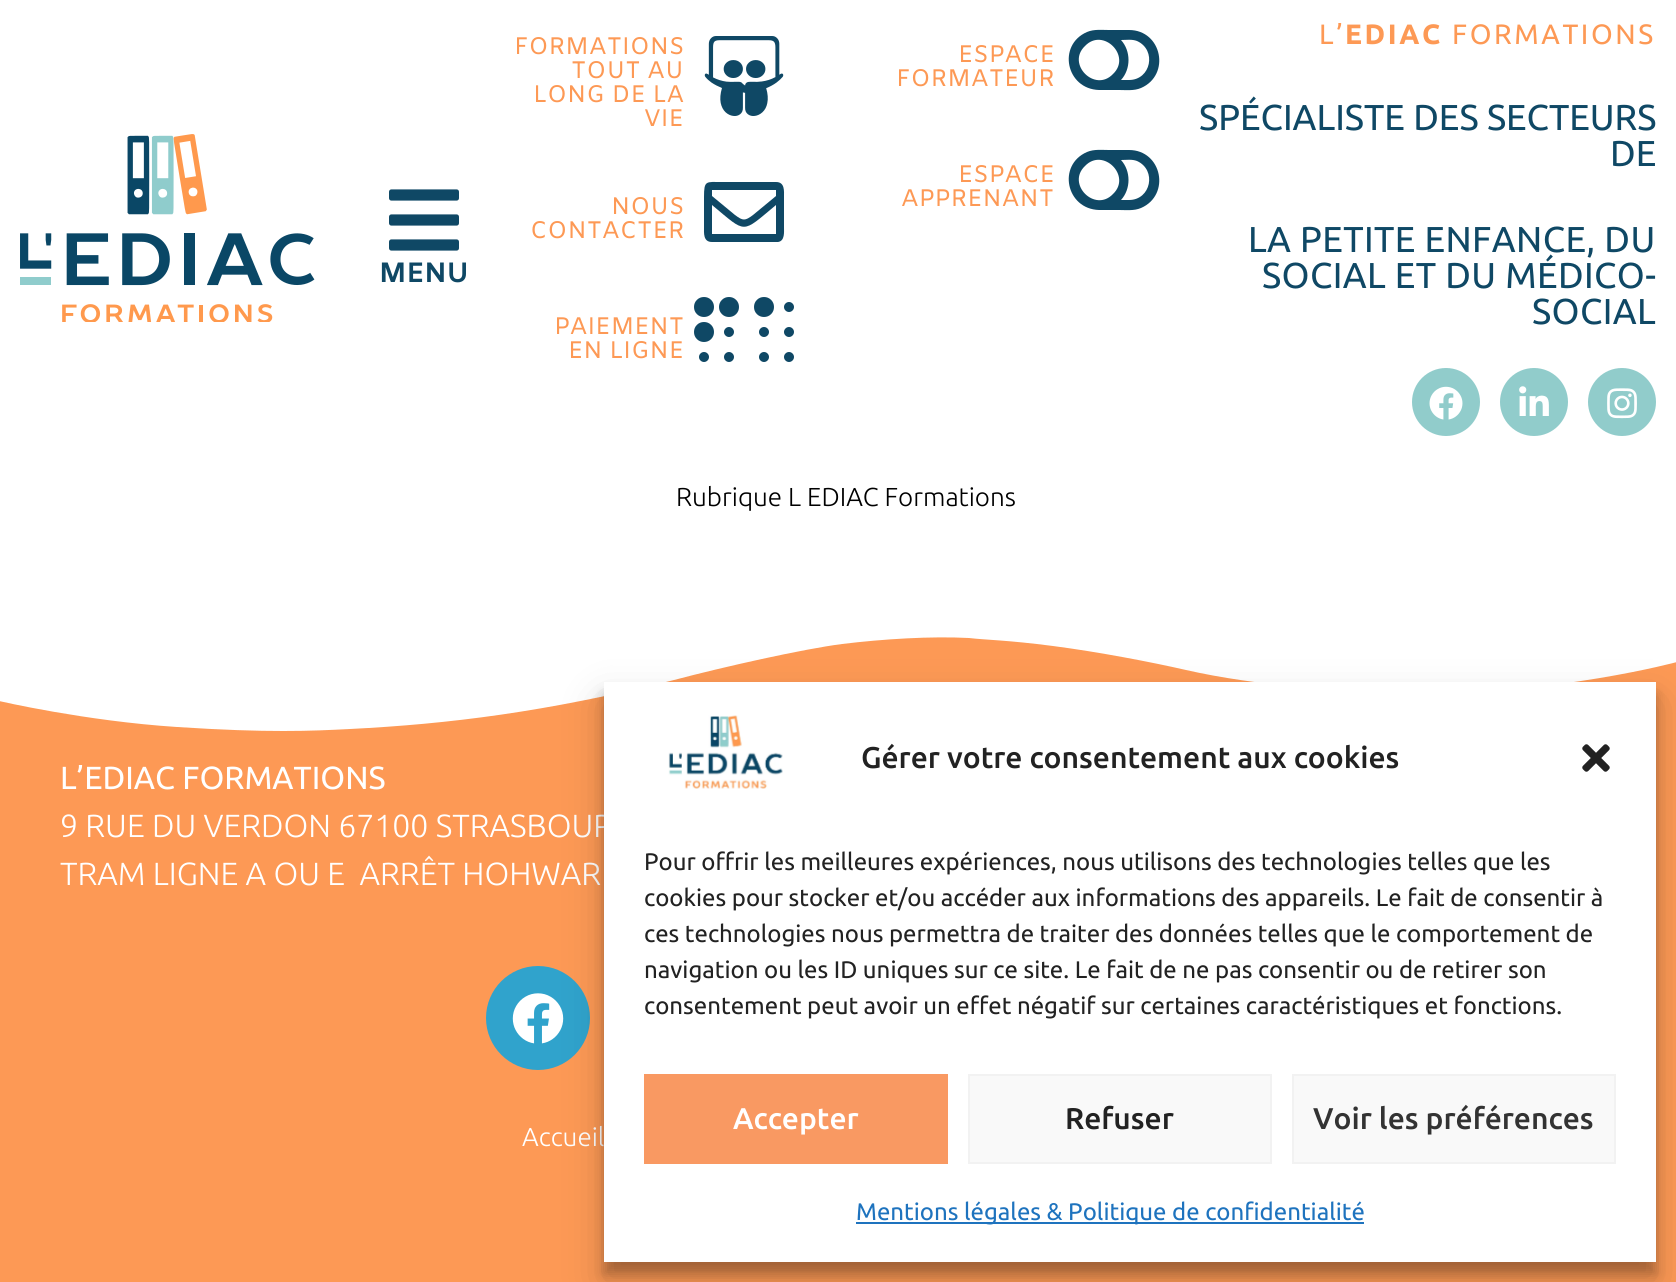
import math
import cairo

surface = cairo.ImageSurface(cairo.Format.RGB24, 1676, 1282)
ctx = cairo.Context(surface)
options = cairo.FontOptions()
options.set_hint_metrics(cairo.HintMetrics.OFF)
options.set_hint_style(cairo.HintStyle.NONE)
ctx.set_font_options(options)
ctx.set_miter_limit(4)


def ink(r, g, b):
    ctx.set_source_rgb(r / 255, g / 255, b / 255)


def write(x, y, s, family, size, color, bold=False, italic=False):
    ctx.select_font_face(family, cairo.FontSlant.ITALIC if italic else cairo.FontSlant.NORMAL, cairo.FontWeight.BOLD if bold else cairo.FontWeight.NORMAL)
    ctx.set_font_size(size)
    ink(*color)
    ctx.move_to(x, y)
    ctx.show_text(s)


def write_spaced(x, y, s, letter, word):
    ctx.move_to(x, y)
    for ch in s:
        ctx.show_text(ch)
        ctx.rel_move_to(letter + word * (ch == ' '), 0)


def block(x, y, w, h, *color):
    ink(*color)
    ctx.rectangle(x, y, w, h)
    ctx.fill()


def round_path(x, y, w, h, r):
    ctx.new_sub_path()
    for i, (u, v) in enumerate([(x + w - r, y + h - r), (x + r, y + h - r), (x + r, y + r), (x + w - r, y + r)]):
        ctx.arc(u, v, r, i * math.pi / 2, (i + 1) * math.pi / 2)
    ctx.close_path()


def blur_box(x, y, w, h, r, blur, alpha):
    ctx.push_group_with_content(cairo.Content.ALPHA)
    ctx.set_operator(cairo.Operator.SOURCE)
    for i in range(15, -16, -2):
        e = blur * i / 6
        if min(w, h) + 2 * e > 0:
            ctx.set_source_rgba(0, 0, 0, alpha * math.erfc((i - 1) / 8.5) / 2)
            round_path(x - e, y - e, w + 2 * e, h + 2 * e, max(0, min(r + e + blur * .6, min(w, h) / 2 + e)))
            ctx.fill()
    ctx.mask(ctx.pop_group())


def paste(path, x, y, w, h):
    ctx.save()
    ctx.set_source_surface(cairo.ImageSurface.create_from_png(path), x, y)
    ctx.rectangle(x, y, w, h)
    ctx.fill()
    ctx.restore()


s1 = dict(family="Amiko", size=28, color=(15, 72, 101), bold=True)
s2 = dict(family="Amiko", size=24, color=(253, 153, 85))
s3 = dict(family="Ubuntu", size=36, color=(15, 72, 101))
s4 = dict(family="Ubuntu Light", size=26, color=(0, 0, 0))
s5 = dict(family="Ubuntu", size=32, color=(255, 255, 255))
s6 = dict(family="Ubuntu Light", size=32, color=(255, 255, 255))
s7 = dict(family="Ubuntu Light", size=26, color=(255, 255, 255))
s8 = dict(family="Ubuntu Medium", size=30, color=(34, 34, 34))
s9 = dict(family="Ubuntu", size=24, color=(34, 34, 34))
s10 = dict(family="Ubuntu Medium", size=30, color=(255, 255, 255))
s11 = dict(family="Ubuntu Medium", size=30, color=(51, 51, 51))
s12 = dict(family="Ubuntu", size=24, color=(30, 115, 190))

ink(255, 255, 255)
ctx.paint()
paste("pic1.png", 20, 134, 295, 188)
paste("pic2.png", 389, 189, 70, 62)
write(379, 282, "MENU", **s1)
write(514, 54, "FORMATIONS", **s2)
write(571, 78, "TOUT AU", **s2)
write(533, 102, "LONG DE LA", **s2)
write(644, 126, "VIE", **s2)
paste("pic3.png", 704, 36, 80, 80)
write(611, 214, "NOUS", **s2)
write(530, 238, "CONTACTER", **s2)
ink(15, 72, 101)
ctx.new_path()
ctx.move_to(776, 182)
ctx.curve_to(785, 182, 784, 191, 784, 197)
ctx.line_to(784, 227)
ctx.curve_to(784, 232, 785, 241, 778, 242)
ctx.line_to(712, 242)
ctx.curve_to(703, 242, 704, 233, 704, 227)
ctx.line_to(704, 197)
ctx.curve_to(704, 180, 706, 182, 722, 182)
ctx.close_path()
ctx.move_to(776, 190)
ctx.line_to(712, 190)
ctx.line_to(712, 196)
ctx.line_to(735, 215)
ctx.curve_to(743, 221, 745, 221, 753, 215)
ctx.line_to(776, 196)
ctx.close_path()
ctx.move_to(712, 234)
ctx.line_to(776, 234)
ctx.line_to(776, 205)
ctx.curve_to(741, 234, 747, 234, 712, 205)
ctx.close_path()
ctx.fill()
write(554, 334, "PAIEMENT", **s2)
write(568, 358, "EN LIGNE", **s2)
paste("pic4.png", 694, 297, 100, 65)
write(958, 62, "ESPACE", **s2)
write(896, 86, "FORMATEUR", **s2)
ink(15, 72, 101)
ctx.new_path()
ctx.move_to(1129, 30)
ctx.curve_to(1162, 30, 1171, 75, 1141, 88)
ctx.curve_to(1134, 91, 1126, 90, 1119, 90)
ctx.line_to(1099, 90)
ctx.curve_to(1066, 89, 1057, 45, 1087, 32)
ctx.curve_to(1094, 29, 1102, 30, 1109, 30)
ctx.close_path()
ctx.move_to(1085, 46)
ctx.curve_to(1066, 64, 1095, 93, 1113, 74)
ctx.curve_to(1132, 56, 1103, 27, 1085, 46)
ctx.close_path()
ctx.move_to(1129, 80)
ctx.curve_to(1151, 80, 1157, 50, 1137, 41)
ctx.curve_to(1132, 39, 1126, 40, 1121, 40)
ctx.curve_to(1131, 51, 1131, 69, 1121, 80)
ctx.close_path()
ctx.fill()
write(958, 182, "ESPACE", **s2)
write(901, 206, "APPRENANT", **s2)
ink(15, 72, 101)
ctx.new_path()
ctx.move_to(1129, 150)
ctx.curve_to(1162, 150, 1171, 195, 1141, 208)
ctx.curve_to(1134, 211, 1126, 210, 1119, 210)
ctx.line_to(1099, 210)
ctx.curve_to(1066, 209, 1057, 165, 1087, 152)
ctx.curve_to(1094, 149, 1102, 150, 1109, 150)
ctx.close_path()
ctx.move_to(1085, 166)
ctx.curve_to(1066, 184, 1095, 213, 1113, 194)
ctx.curve_to(1132, 176, 1103, 147, 1085, 166)
ctx.close_path()
ctx.move_to(1129, 200)
ctx.curve_to(1151, 200, 1157, 170, 1137, 161)
ctx.curve_to(1132, 159, 1126, 160, 1121, 160)
ctx.curve_to(1131, 171, 1131, 189, 1121, 200)
ctx.close_path()
ctx.fill()
ctx.select_font_face("Ubuntu")
ctx.set_font_size(28)
ink(253, 153, 85)
write_spaced(1319, 44, "L’", 2.6, 0)
ctx.select_font_face("Ubuntu", cairo.FontSlant.NORMAL, cairo.FontWeight.BOLD)
write_spaced(1345, 44, "EDIAC", 2.6, 0)
ctx.select_font_face("Ubuntu")
write_spaced(1452, 44, "FORMATIONS", 2.6, 0)
write(1199, 130, "SPÉCIALISTE DES SECTEURS", **s3)
write(1610, 166, "DE", **s3)
write_spaced(1248, 252, "LA PETITE ENFANCE, DU", 0.4, 0)
write_spaced(1262, 288, "SOCIAL ET DU MÉDICO-", 0.4, 0)
write_spaced(1532, 324, "SOCIAL", 0.4, 0)
ink(145, 204, 203)
ctx.new_path()
ctx.arc(1446, 402, 34, 0, 2 * math.pi)
ctx.fill()
paste("pic5.png", 1429, 386, 34, 34)
ctx.arc(1534, 402, 34, 0, 2 * math.pi)
ctx.fill()
paste("pic6.png", 1519, 386, 30, 30)
ctx.arc(1622, 402, 34, 0, 2 * math.pi)
ctx.fill()
paste("pic7.png", 1607, 388, 30, 31)
write(676, 506, "Rubrique L EDIAC Formations", **s4)
block(0, 637, 1676, 645, 253, 153, 85)
ink(255, 255, 255)
ctx.new_path()
ctx.move_to(969, 638)
ctx.curve_to(931, 636, 883, 639, 842, 644)
ctx.curve_to(803, 649, 723, 667, 674, 680)
ctx.curve_to(546, 712, 449, 724, 350, 729)
ctx.curve_to(311, 731, 269, 733, 177, 727)
ctx.curve_to(85, 721, -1, 701, -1, 701)
ctx.line_to(-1, 632)
ctx.line_to(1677, 632)
ctx.line_to(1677, 662)
ctx.curve_to(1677, 662, 1556, 695, 1411, 693)
ctx.curve_to(1346, 692, 1256, 686, 1186, 670)
ctx.curve_to(1151, 662, 1099, 652, 1053, 646)
ctx.curve_to(1007, 640, 986, 640, 969, 638)
ctx.close_path()
ctx.fill()
write(60, 789, "L’EDIAC FORMATIONS", **s5)
write(60, 837, "9 RUE DU VERDON 67100 STRASBOUR", **s6)
write(60, 885, "TRAM LIGNE A OU E  ARRÊT HOHWAR", **s6)
ink(48, 163, 204)
ctx.new_path()
ctx.arc(538, 1018, 52, 0, 2 * math.pi)
ctx.fill()
paste("pic8.png", 512, 993, 52, 51)
write(522, 1146, "Accueil", **s7)
ink(0, 0, 0)
blur_box(604, 694, 1052, 580, 0, 6, 0.23)
blur_box(604, 702, 1052, 580, 0, 20, 0.19)
block(604, 682, 1052, 580, 255, 255, 255)
paste("pic9.png", 668, 715, 115, 74)
write(861, 768, "Gérer votre consentement aux cookies", **s8)
paste("pic10.png", 1582, 744, 28, 28)
write(644, 870, "Pour offrir les meilleures expériences, nous utilisons des technologies telles que les", **s9)
write(644, 906, "cookies pour stocker et/ou accéder aux informations des appareils. Le fait de consentir à", **s9)
write(644, 942, "ces technologies nous permettra de traiter des données telles que le comportement de", **s9)
write(644, 978, "navigation ou les ID uniques sur ce site. Le fait de ne pas consentir ou de retirer son", **s9)
write(644, 1014, "consentement peut avoir un effet négatif sur certaines caractéristiques et fonctions.", **s9)
block(644, 1074, 304, 90, 249, 153, 98)
write(733, 1129, "Accepter", **s10)
ink(249, 249, 249)
ctx.rectangle(969, 1075, 302, 88)
ctx.fill_preserve()
ink(242, 242, 242)
ctx.stroke()
write(1065, 1129, "Refuser", **s8)
ink(249, 249, 249)
ctx.rectangle(1293, 1075, 322, 88)
ctx.fill_preserve()
ink(242, 242, 242)
ctx.stroke()
write(1313, 1129, "Voir les préférences", **s11)
block(856, 1222, 508, 2, 30, 115, 190)
write(856, 1220, "Mentions légales & Politique de confidentialité", **s12)
surface.write_to_png("screenshot.png")
